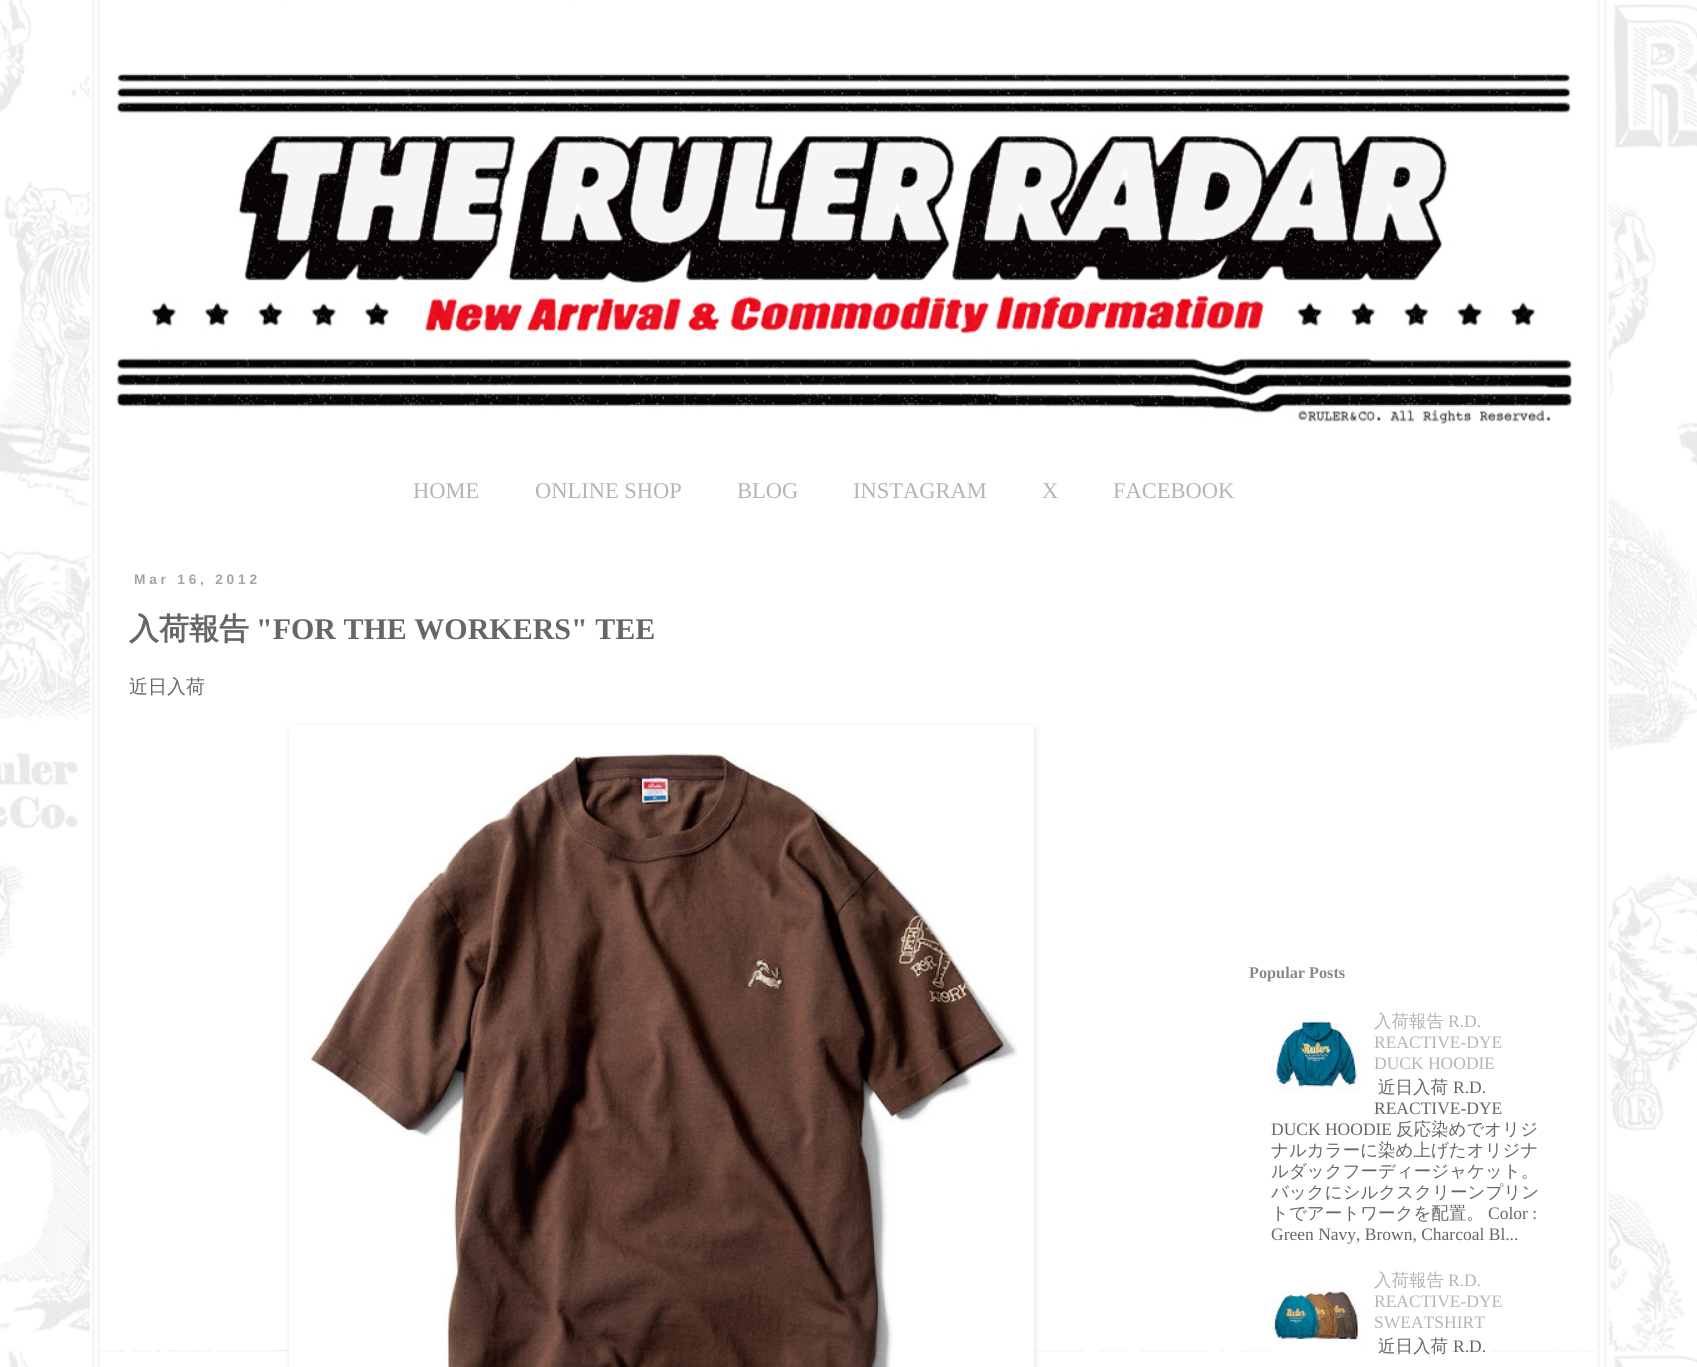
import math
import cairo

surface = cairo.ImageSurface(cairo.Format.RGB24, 1697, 1367)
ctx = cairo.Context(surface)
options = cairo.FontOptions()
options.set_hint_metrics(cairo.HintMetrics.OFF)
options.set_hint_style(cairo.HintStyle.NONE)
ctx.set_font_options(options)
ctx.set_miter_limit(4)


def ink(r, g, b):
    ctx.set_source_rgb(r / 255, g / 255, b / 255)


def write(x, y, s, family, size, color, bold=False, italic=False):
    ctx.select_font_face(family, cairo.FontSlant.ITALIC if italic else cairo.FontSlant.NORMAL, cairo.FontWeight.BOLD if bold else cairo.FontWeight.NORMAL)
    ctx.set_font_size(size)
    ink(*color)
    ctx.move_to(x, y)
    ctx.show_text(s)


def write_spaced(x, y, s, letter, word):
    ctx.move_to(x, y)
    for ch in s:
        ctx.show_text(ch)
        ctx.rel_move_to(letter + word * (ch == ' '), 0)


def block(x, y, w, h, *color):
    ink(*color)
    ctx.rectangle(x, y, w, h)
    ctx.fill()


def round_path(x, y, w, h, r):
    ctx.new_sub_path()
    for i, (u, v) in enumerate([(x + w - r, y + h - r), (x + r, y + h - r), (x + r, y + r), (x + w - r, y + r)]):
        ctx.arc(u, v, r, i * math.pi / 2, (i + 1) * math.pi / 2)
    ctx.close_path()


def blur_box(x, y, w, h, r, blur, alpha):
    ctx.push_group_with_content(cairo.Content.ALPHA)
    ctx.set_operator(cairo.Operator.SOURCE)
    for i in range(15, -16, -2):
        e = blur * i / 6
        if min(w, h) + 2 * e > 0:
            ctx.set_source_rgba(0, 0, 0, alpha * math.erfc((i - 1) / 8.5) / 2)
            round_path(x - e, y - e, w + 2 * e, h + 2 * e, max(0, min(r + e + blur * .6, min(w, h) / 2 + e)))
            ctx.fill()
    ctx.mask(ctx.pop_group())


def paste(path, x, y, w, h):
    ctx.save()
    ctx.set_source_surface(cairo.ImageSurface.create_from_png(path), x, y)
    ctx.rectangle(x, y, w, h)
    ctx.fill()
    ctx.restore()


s1 = dict(family="Liberation Serif", size=22.5, color=(180, 180, 180))
s2 = dict(family="WenQuanYi Zen Hei", size=30, color=(102, 102, 102), bold=True)
s3 = dict(family="Liberation Serif", size=30, color=(102, 102, 102), bold=True)
s4 = dict(family="WenQuanYi Zen Hei Medium", size=19, color=(102, 102, 102))
s5 = dict(family="Liberation Serif", size=16.25, color=(136, 136, 136), bold=True)
s6 = dict(family="WenQuanYi Zen Hei Medium", size=17.5, color=(180, 180, 180))
s7 = dict(family="Liberation Serif", size=17.5, color=(180, 180, 180))
s8 = dict(family="WenQuanYi Zen Hei Medium", size=17.5, color=(102, 102, 102))
s9 = dict(family="Liberation Serif", size=17.5, color=(102, 102, 102))

ink(255, 255, 255)
ctx.paint()
paste("pic1.png", 0, 0, 1697, 1367)
paste("pic2.png", 117, 73, 1455, 351)
write(413, 498, "HOME", **s1)
write(535, 498, "ONLINE SHOP", **s1)
write(737, 498, "BLOG", **s1)
write(853, 498, "INSTAGRAM", **s1)
write(1042, 498, "X", **s1)
write(1113, 498, "FACEBOOK", **s1)
ctx.select_font_face("Liberation Sans", cairo.FontSlant.NORMAL, cairo.FontWeight.BOLD)
ctx.set_font_size(13.75)
ink(163, 163, 163)
write_spaced(134, 584, "Mar 16, 2012", 3.75, 0)
write(129, 639, "入荷報告", **s2)
write(256, 639, "\"FOR THE WORKERS\" TEE", **s3)
write(129, 693, "近日入荷", **s4)
ink(0, 0, 0)
blur_box(290, 728, 745, 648, 0, 3, 0.1)
block(289, 726, 745, 641, 255, 255, 255)
paste("pic3.png", 308, 753, 710, 614)
write(1249, 978, "Popular Posts", **s5)
paste("pic4.png", 1271, 1021, 90, 70)
write(1374, 1027, "入荷報告", **s6)
write(1448, 1027, "R.D.", **s7)
write(1374, 1048, "REACTIVE-DYE", **s7)
write(1374, 1069, "DUCK HOODIE", **s7)
write(1378, 1093, "近日入荷", **s8)
write(1453, 1093, "R.D.", **s9)
write(1374, 1114, "REACTIVE-DYE", **s9)
write(1271, 1135, "DUCK HOODIE", **s9)
write(1396, 1135, "反応染めでオリジ", **s8)
write(1271, 1156, "ナルカラーに染め上げたオリジナ", **s8)
write(1271, 1177, "ルダックフーディージャケット。", **s8)
write(1271, 1198, "バックにシルクスクリーンプリン", **s8)
write(1271, 1219, "トでアートワークを配置。", **s8)
write(1488, 1219, "Color :", **s9)
write(1271, 1240, "Green Navy, Brown, Charcoal Bl...", **s9)
paste("pic5.png", 1271, 1291, 90, 61)
write(1374, 1286, "入荷報告", **s6)
write(1448, 1286, "R.D.", **s7)
write(1374, 1307, "REACTIVE-DYE", **s7)
write(1374, 1328, "SWEATSHIRT", **s7)
write(1378, 1352, "近日入荷", **s8)
write(1453, 1352, "R.D.", **s9)
surface.write_to_png("screenshot.png")
